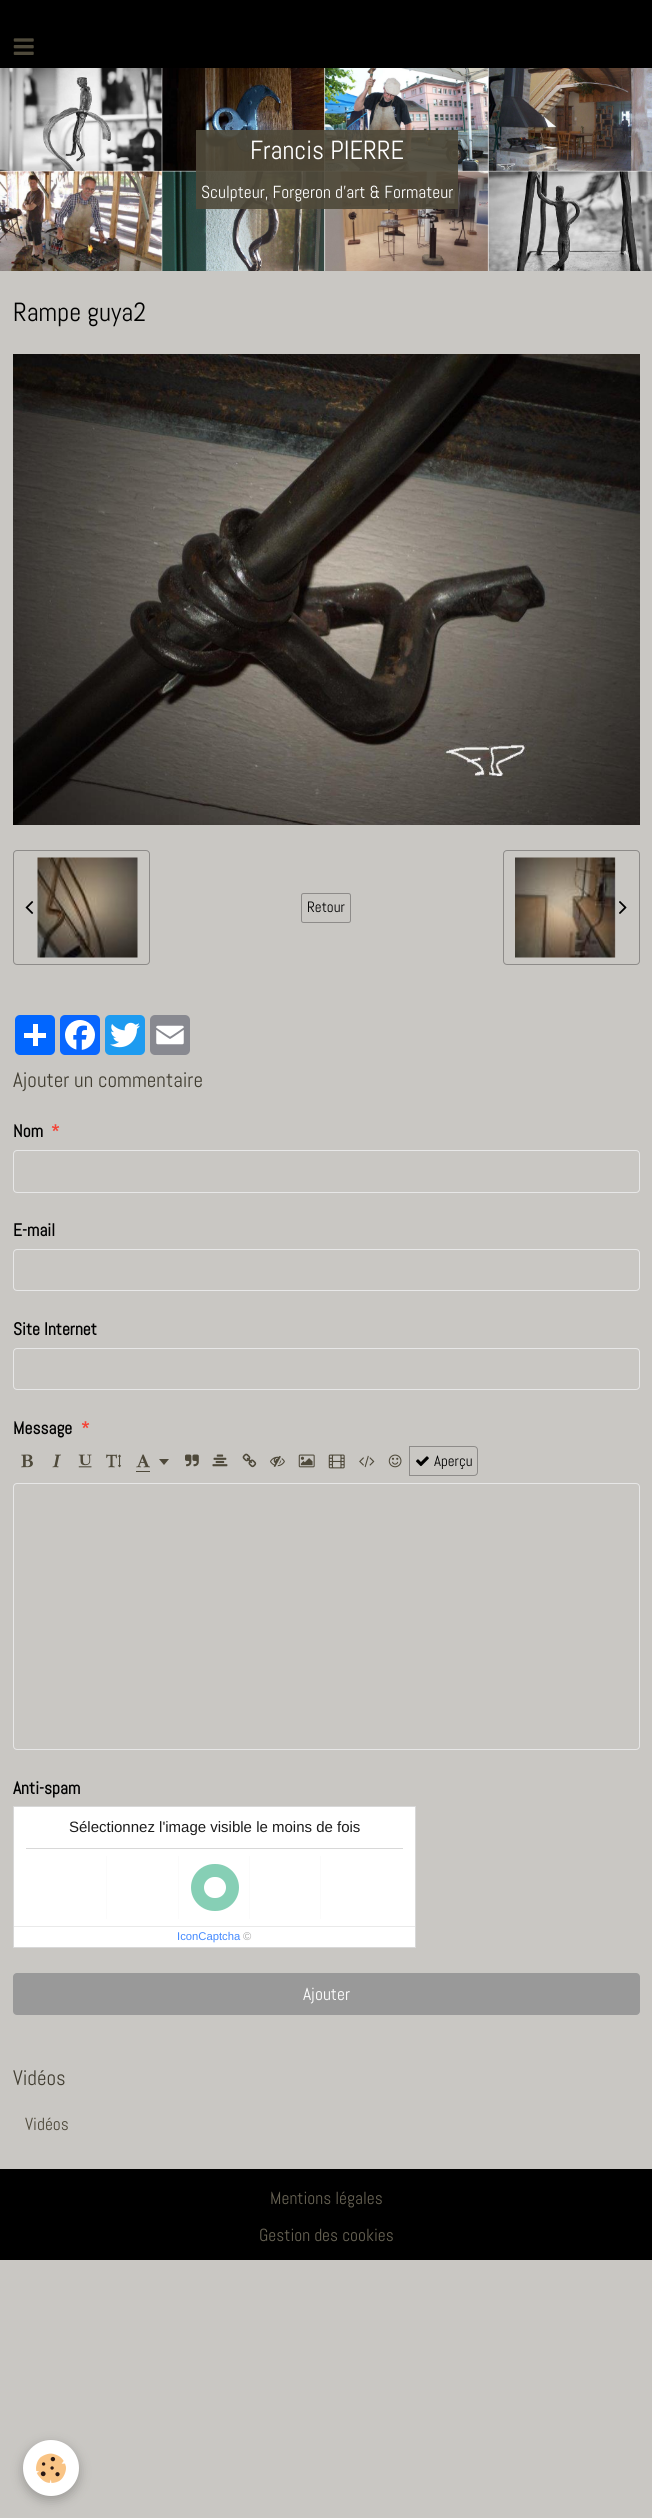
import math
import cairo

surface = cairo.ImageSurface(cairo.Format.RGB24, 652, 2518)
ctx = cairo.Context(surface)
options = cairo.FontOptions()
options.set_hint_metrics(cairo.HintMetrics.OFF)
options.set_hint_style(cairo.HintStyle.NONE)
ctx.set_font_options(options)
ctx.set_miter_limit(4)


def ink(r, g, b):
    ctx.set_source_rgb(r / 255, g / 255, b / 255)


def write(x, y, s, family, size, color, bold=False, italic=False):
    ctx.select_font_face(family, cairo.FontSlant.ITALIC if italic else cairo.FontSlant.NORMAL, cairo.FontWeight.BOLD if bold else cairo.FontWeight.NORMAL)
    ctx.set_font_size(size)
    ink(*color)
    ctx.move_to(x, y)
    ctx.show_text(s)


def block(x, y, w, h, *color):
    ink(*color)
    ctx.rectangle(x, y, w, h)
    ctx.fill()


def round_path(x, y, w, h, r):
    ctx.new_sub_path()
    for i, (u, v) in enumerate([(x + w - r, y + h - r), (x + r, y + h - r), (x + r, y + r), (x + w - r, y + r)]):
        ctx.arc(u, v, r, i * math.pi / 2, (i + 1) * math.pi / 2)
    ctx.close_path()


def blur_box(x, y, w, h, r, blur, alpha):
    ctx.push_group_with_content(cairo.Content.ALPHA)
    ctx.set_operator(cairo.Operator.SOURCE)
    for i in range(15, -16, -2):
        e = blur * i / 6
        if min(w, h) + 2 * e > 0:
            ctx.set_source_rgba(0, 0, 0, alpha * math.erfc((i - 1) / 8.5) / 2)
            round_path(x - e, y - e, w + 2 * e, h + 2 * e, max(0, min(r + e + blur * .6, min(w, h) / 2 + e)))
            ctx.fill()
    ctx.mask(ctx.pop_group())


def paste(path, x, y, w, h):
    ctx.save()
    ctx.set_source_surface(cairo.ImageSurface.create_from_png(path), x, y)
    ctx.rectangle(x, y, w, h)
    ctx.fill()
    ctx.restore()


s1 = dict(family="Abel", size=26.25, color=(255, 255, 255))
s2 = dict(family="Abel", size=17.5, color=(255, 255, 255))
s3 = dict(family="Abel", size=26.25, color=(0, 0, 0))
s4 = dict(family="Abel", size=15, color=(0, 0, 0))
s5 = dict(family="Abel", size=21, color=(66, 62, 50))
s6 = dict(family="Abel", size=17.5, color=(0, 0, 0), bold=True)
s7 = dict(family="Abel", size=17.5, color=(244, 67, 54), bold=True)
s8 = dict(family="Liberation Sans", size=15, color=(29, 29, 29))
s9 = dict(family="Liberation Sans", size=11.25, color=(68, 138, 255))
s10 = dict(family="Liberation Sans", size=11.25, color=(167, 167, 167))
s11 = dict(family="Abel", size=17.5, color=(78, 73, 58))
s12 = dict(family="Abel", size=17.5, color=(103, 98, 83))

ink(201, 199, 195)
ctx.paint()
block(0, 0, 652, 68, 0, 0, 0)
paste("pic1.png", 13, 38, 21, 17)
paste("pic2.png", 0, 68, 652, 203)
ctx.set_source_rgba(0.306, 0.286, 0.227, 0.91)
ctx.rectangle(196, 130, 262, 79)
ctx.fill()
write(250, 159, "Francis PIERRE", **s1)
write(201, 198, "Sculpteur, Forgeron d'art & Formateur", **s2)
write(13, 321, "Rampe guya2", **s3)
paste("pic3.png", 13, 354, 627, 471)
paste("pic4.png", 25, 901, 9, 13)
paste("pic5.png", 37, 857, 101, 101)
round_path(13.5, 850.5, 136, 114, 3.5)
ink(141, 139, 137)
ctx.set_line_width(1)
ctx.stroke()
round_path(301.5, 893.5, 49, 29, 2)
ctx.stroke()
write(307, 912, "Retour", **s4)
paste("pic6.png", 515, 857, 101, 101)
paste("pic7.png", 619, 901, 8, 13)
round_path(503.5, 850.5, 136, 114, 3.5)
ink(141, 139, 137)
ctx.stroke()
ink(1, 102, 255)
round_path(15, 1015, 40, 40, 5)
ctx.fill()
block(33, 1024, 5, 22, 255, 255, 255)
block(24, 1033, 22, 5, 255, 255, 255)
ink(8, 102, 255)
round_path(60, 1015, 40, 40, 5)
ctx.fill()
paste("pic8.png", 65, 1020, 30, 30)
ink(29, 155, 240)
round_path(105, 1015, 40, 40, 5)
ctx.fill()
paste("pic9.png", 110, 1022, 30, 26)
ink(136, 137, 144)
round_path(150, 1015, 40, 40, 5)
ctx.fill()
paste("pic10.png", 156, 1025, 28, 20)
write(13, 1087, "Ajouter un commentaire", **s5)
write(13, 1137, "Nom", **s6)
write(51, 1137, "*", **s7)
round_path(13.5, 1150.5, 626, 42, 3.5)
ink(231, 231, 231)
ctx.stroke()
write(13, 1236, "E-mail", **s6)
round_path(13.5, 1249.5, 626, 41, 3.5)
ink(231, 231, 231)
ctx.stroke()
write(13, 1335, "Site Internet", **s6)
round_path(13.5, 1348.5, 626, 41, 3.5)
ink(231, 231, 231)
ctx.stroke()
write(13, 1434, "Message", **s6)
write(81, 1434, "*", **s7)
paste("pic11.png", 21, 1454, 12, 14)
paste("pic12.png", 52, 1454, 9, 14)
paste("pic13.png", 78, 1454, 14, 14)
paste("pic14.png", 106, 1454, 15, 14)
paste("pic15.png", 136, 1454, 14, 14)
block(136, 1471, 14, 1, 78, 73, 58)
ctx.new_path()
ctx.move_to(159, 1459)
ctx.line_to(169, 1459)
ctx.line_to(164, 1465)
ctx.close_path()
ctx.fill()
paste("pic16.png", 185, 1454, 14, 13)
paste("pic17.png", 212, 1454, 16, 13)
paste("pic18.png", 242, 1453, 15, 15)
paste("pic19.png", 270, 1456, 15, 11)
paste("pic20.png", 298, 1454, 17, 14)
paste("pic21.png", 328, 1454, 17, 15)
paste("pic22.png", 359, 1455, 16, 13)
paste("pic23.png", 388, 1454, 14, 14)
paste("pic24.png", 416, 1456, 13, 11)
ctx.new_path()
ctx.move_to(409.5, 1446.5)
ctx.line_to(474, 1446.5)
ctx.curve_to(476, 1446.5, 477.5, 1448, 477.5, 1450)
ctx.line_to(477.5, 1472)
ctx.curve_to(477.5, 1474, 476, 1475.5, 474, 1475.5)
ctx.line_to(409.5, 1475.5)
ctx.close_path()
ink(141, 139, 137)
ctx.stroke()
write(434, 1466, "Aperçu", **s4)
round_path(13.5, 1483.5, 626, 266, 3.5)
ink(231, 231, 231)
ctx.stroke()
write(13, 1794, "Anti-spam", **s6)
ink(255, 255, 255)
ctx.rectangle(13.5, 1806.5, 402, 141)
ctx.fill_preserve()
ink(216, 216, 216)
ctx.stroke()
block(26, 1848, 377, 1, 216, 216, 216)
write(69, 1832, "Sélectionnez l'image visible le moins de fois", **s8)
block(106, 1856, 1, 63, 251, 251, 251)
block(178, 1856, 1, 63, 251, 251, 251)
round_path(197.5, 1870.5, 35, 34, 17)
ink(134, 207, 181)
ctx.set_line_width(13)
ctx.stroke()
block(249, 1856, 1, 63, 251, 251, 251)
block(320, 1856, 1, 63, 251, 251, 251)
block(14, 1926, 401, 1, 234, 234, 234)
write(177, 1940, "IconCaptcha", **s9)
write(243, 1940, "©", **s10)
ink(153, 153, 153)
round_path(13, 1973, 627, 42, 4)
ctx.fill()
write(303, 2000, "Ajouter", **s2)
write(13, 2085, "Vidéos", **s5)
write(25, 2130, "Vidéos", **s11)
block(0, 2169, 652, 91, 0, 0, 0)
write(270, 2204, "Mentions légales", **s12)
write(259, 2241, "Gestion des cookies", **s12)
ink(0, 0, 0)
blur_box(23, 2444, 56, 56, 28, 6, 0.24)
ink(255, 255, 255)
ctx.arc(51, 2468, 28, 0, 2 * math.pi)
ctx.fill()
paste("pic25.png", 36, 2453, 30, 30)
surface.write_to_png("screenshot.png")
